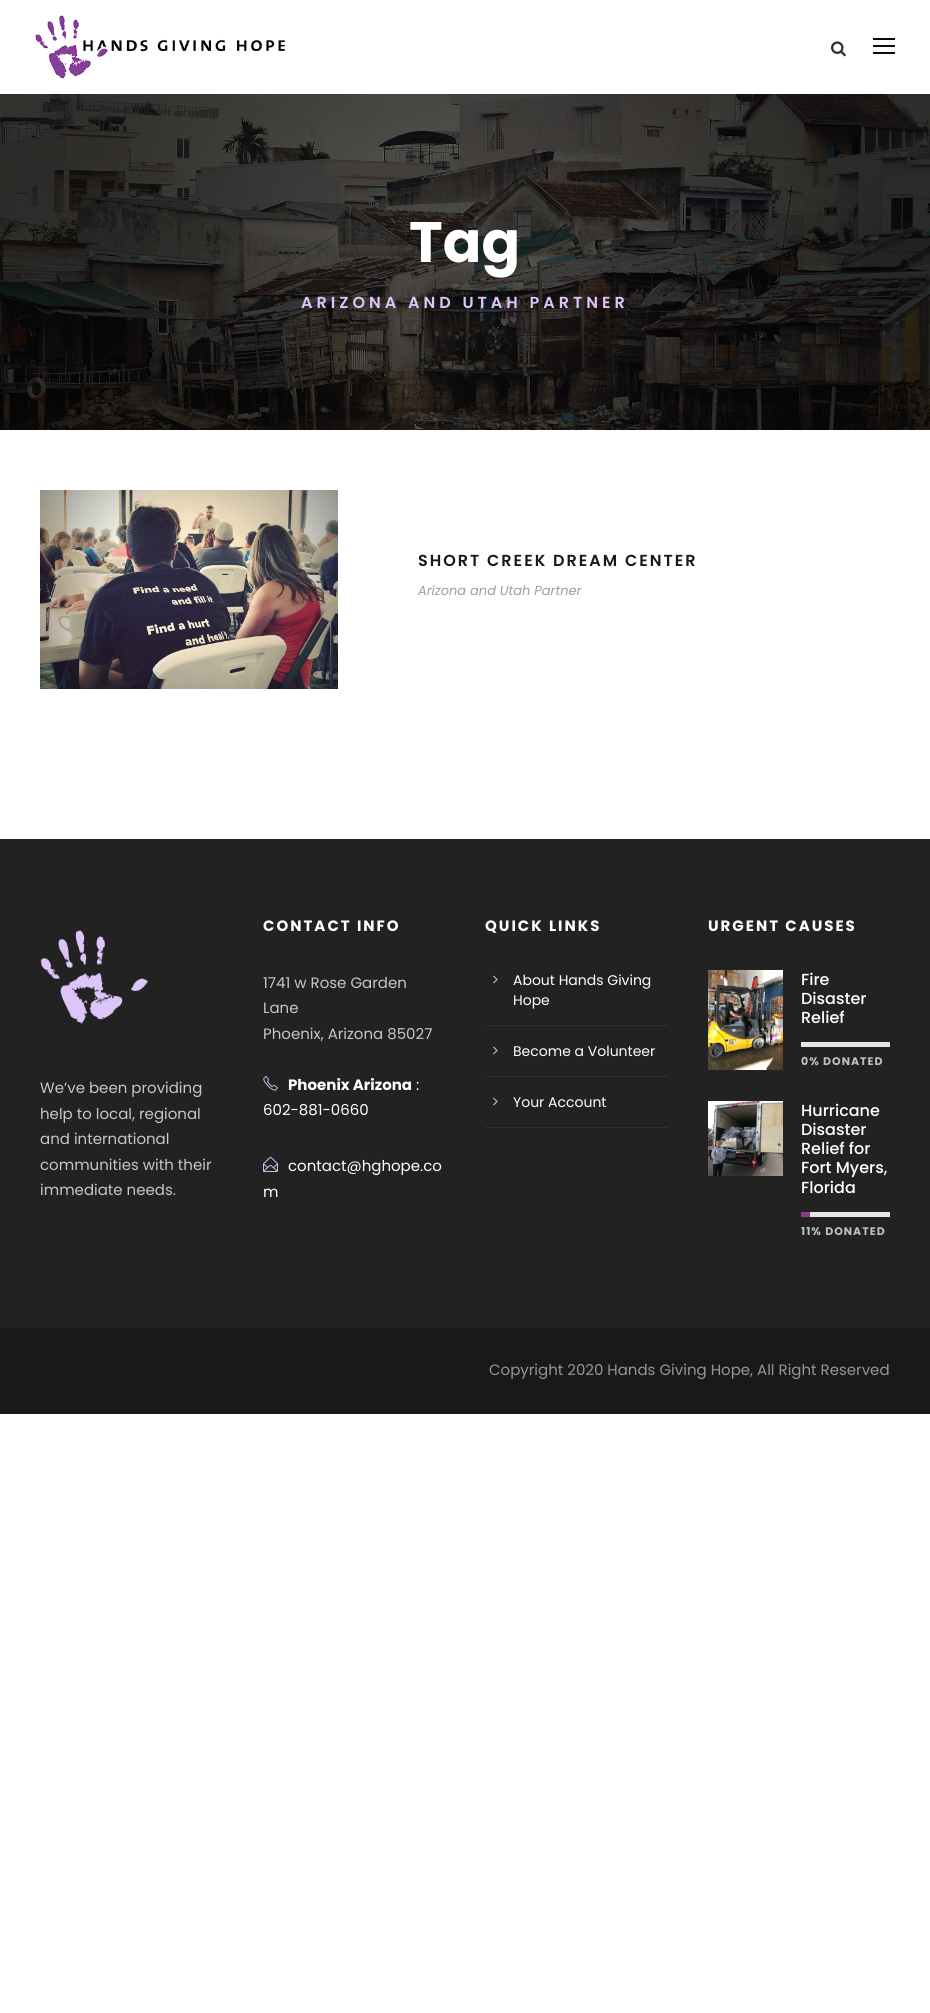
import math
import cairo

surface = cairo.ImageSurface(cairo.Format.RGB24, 930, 2013)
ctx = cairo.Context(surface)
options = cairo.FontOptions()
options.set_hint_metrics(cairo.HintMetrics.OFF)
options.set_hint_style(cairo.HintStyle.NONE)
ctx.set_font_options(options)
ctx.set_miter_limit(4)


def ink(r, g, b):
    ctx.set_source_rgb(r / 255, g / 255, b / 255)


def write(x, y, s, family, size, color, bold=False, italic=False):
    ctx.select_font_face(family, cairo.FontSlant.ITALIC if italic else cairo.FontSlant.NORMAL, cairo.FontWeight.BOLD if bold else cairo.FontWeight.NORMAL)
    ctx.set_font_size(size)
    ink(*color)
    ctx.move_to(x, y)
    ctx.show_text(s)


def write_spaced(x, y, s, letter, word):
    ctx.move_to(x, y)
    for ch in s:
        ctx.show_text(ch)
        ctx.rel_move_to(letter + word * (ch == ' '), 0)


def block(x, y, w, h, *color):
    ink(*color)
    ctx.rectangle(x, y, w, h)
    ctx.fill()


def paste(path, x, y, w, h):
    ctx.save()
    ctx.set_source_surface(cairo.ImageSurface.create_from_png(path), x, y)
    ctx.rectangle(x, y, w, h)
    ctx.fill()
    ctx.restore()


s1 = dict(family="Poppins", size=57, color=(255, 255, 255), bold=True)
s2 = dict(family="Poppins", size=13, color=(157, 157, 157), italic=True)
s3 = dict(family="Poppins", size=15, color=(199, 199, 199))
s4 = dict(family="Poppins", size=15, color=(255, 255, 255), bold=True)
s5 = dict(family="Poppins", size=15, color=(255, 255, 255))
s6 = dict(family="Poppins", size=14, color=(255, 255, 255))
s7 = dict(family="Poppins Medium", size=16, color=(255, 255, 255))
s8 = dict(family="Poppins", size=15, color=(150, 150, 150))

ink(255, 255, 255)
ctx.paint()
paste("pic1.png", 35, 15, 250, 64)
paste("pic2.png", 831, 41, 15, 16)
block(873, 38, 22, 2, 10, 10, 10)
block(873, 45, 22, 2, 10, 10, 10)
block(873, 52, 22, 2, 10, 10, 10)
paste("pic3.png", 0, 94, 930, 336)
write(409, 262, "Tag", **s1)
ctx.select_font_face("Poppins SemiBold")
ctx.set_font_size(16)
ink(221, 197, 249)
write_spaced(301, 308, "ARIZONA AND UTAH PARTNER", 4, 0)
paste("pic4.png", 40, 490, 298, 199)
ink(25, 25, 25)
write_spaced(418, 566, "SHORT CREEK DREAM CENTER", 2, 0)
write(418, 595, "Arizona and Utah Partner", **s2)
block(0, 839, 930, 489, 34, 34, 34)
paste("pic5.png", 40, 930, 108, 94)
write(40, 1093, "We’ve been providing", **s3)
write(40, 1119, "help to local, regional", **s3)
write(40, 1144, "and international", **s3)
write(40, 1170, "communities with their", **s3)
write(40, 1195, "immediate needs.", **s3)
ctx.select_font_face("Poppins", cairo.FontSlant.NORMAL, cairo.FontWeight.BOLD)
ink(255, 255, 255)
write_spaced(263, 931, "CONTACT INFO", 2, 0)
write(263, 988, "1741 w Rose Garden", **s3)
write(263, 1013, "Lane", **s3)
write(263, 1039, "Phoenix, Arizona 85027", **s3)
paste("pic6.png", 263, 1076, 15, 15)
write(288, 1090, "Phoenix Arizona", **s4)
write(416, 1090, ":", **s5)
write(263, 1115, "602-881-0660", **s5)
paste("pic7.png", 263, 1156, 15, 16)
write(288, 1171, "contact@hghope.co", **s5)
write(263, 1197, "m", **s5)
ctx.select_font_face("Poppins", cairo.FontSlant.NORMAL, cairo.FontWeight.BOLD)
write_spaced(485, 931, "QUICK LINKS", 2, 0)
block(485, 1025, 183, 1, 48, 48, 48)
paste("pic8.png", 493, 975, 5, 9)
write(513, 985, "About Hands Giving", **s6)
write(513, 1005, "Hope", **s6)
block(485, 1076, 183, 1, 48, 48, 48)
paste("pic8.png", 493, 1046, 5, 9)
write(513, 1056, "Become a Volunteer", **s6)
block(485, 1127, 183, 1, 48, 48, 48)
paste("pic8.png", 493, 1097, 5, 9)
write(513, 1107, "Your Account", **s6)
ctx.select_font_face("Poppins", cairo.FontSlant.NORMAL, cairo.FontWeight.BOLD)
ctx.set_font_size(15)
write_spaced(708, 931, "URGENT CAUSES", 2, 0)
paste("pic9.png", 708, 970, 75, 100)
write(801, 985, "Fire", **s7)
write(801, 1004, "Disaster", **s7)
write(801, 1023, "Relief", **s7)
block(801, 1042, 89, 5, 230, 230, 230)
ctx.select_font_face("Poppins", cairo.FontSlant.NORMAL, cairo.FontWeight.BOLD)
ctx.set_font_size(11)
ink(192, 192, 192)
write_spaced(801, 1065, "0% DONATED", 1, 0)
paste("pic10.png", 708, 1101, 75, 75)
write(801, 1116, "Hurricane", **s7)
write(801, 1135, "Disaster", **s7)
write(801, 1154, "Relief for", **s7)
write(801, 1173, "Fort Myers,", **s7)
write(801, 1193, "Florida", **s7)
block(810, 1212, 80, 5, 230, 230, 230)
block(801, 1212, 9, 5, 134, 64, 137)
ctx.select_font_face("Poppins", cairo.FontSlant.NORMAL, cairo.FontWeight.BOLD)
ctx.set_font_size(11)
ink(192, 192, 192)
write_spaced(801, 1235, "11% DONATED", 1, 0)
block(0, 1328, 930, 86, 25, 25, 25)
write(489, 1375, "Copyright 2020 Hands Giving Hope, All Right Reserved", **s8)
surface.write_to_png("screenshot.png")
